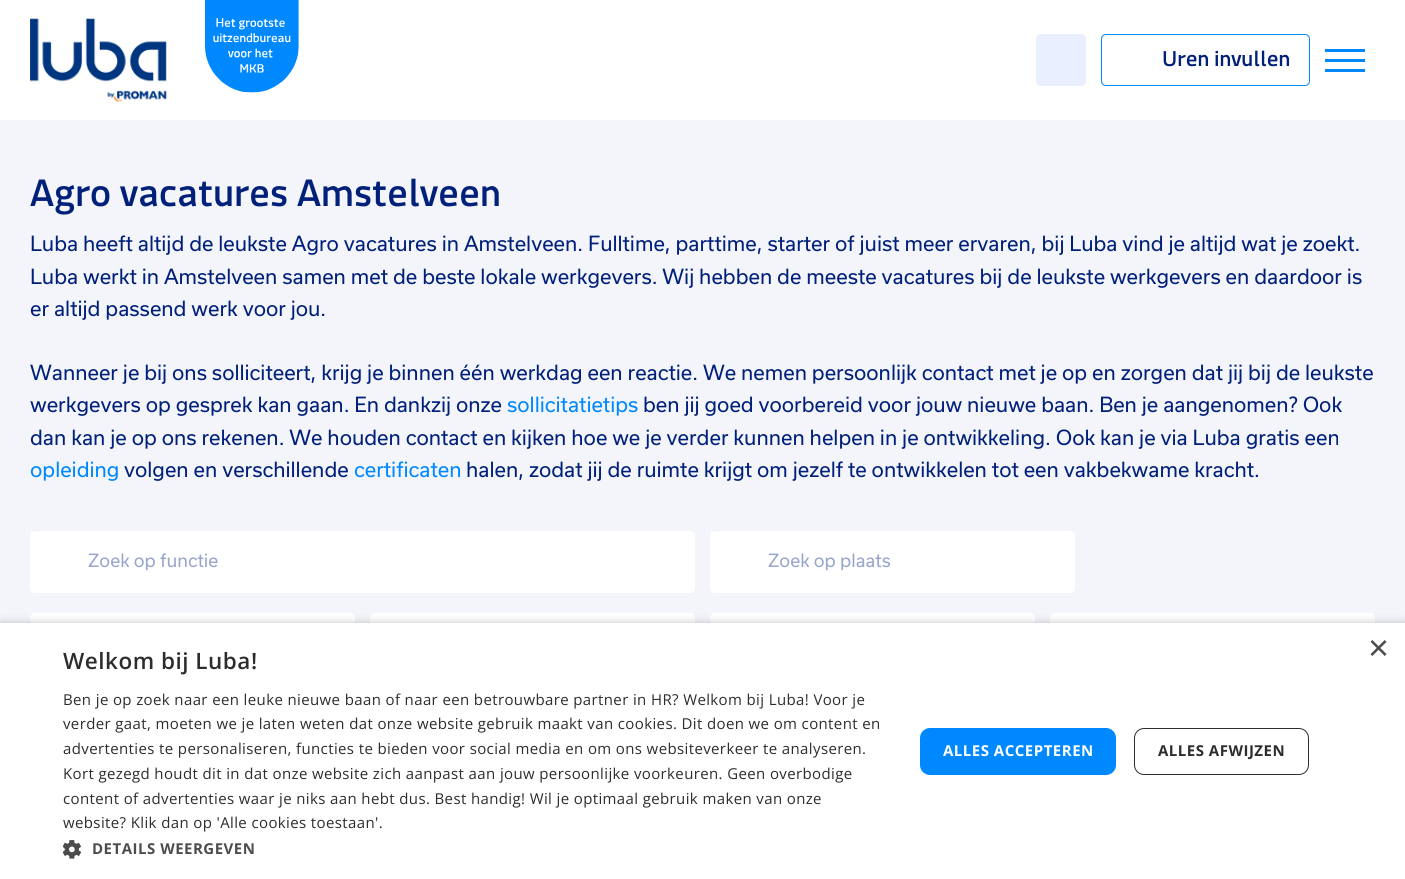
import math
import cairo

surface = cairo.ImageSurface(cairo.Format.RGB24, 1405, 879)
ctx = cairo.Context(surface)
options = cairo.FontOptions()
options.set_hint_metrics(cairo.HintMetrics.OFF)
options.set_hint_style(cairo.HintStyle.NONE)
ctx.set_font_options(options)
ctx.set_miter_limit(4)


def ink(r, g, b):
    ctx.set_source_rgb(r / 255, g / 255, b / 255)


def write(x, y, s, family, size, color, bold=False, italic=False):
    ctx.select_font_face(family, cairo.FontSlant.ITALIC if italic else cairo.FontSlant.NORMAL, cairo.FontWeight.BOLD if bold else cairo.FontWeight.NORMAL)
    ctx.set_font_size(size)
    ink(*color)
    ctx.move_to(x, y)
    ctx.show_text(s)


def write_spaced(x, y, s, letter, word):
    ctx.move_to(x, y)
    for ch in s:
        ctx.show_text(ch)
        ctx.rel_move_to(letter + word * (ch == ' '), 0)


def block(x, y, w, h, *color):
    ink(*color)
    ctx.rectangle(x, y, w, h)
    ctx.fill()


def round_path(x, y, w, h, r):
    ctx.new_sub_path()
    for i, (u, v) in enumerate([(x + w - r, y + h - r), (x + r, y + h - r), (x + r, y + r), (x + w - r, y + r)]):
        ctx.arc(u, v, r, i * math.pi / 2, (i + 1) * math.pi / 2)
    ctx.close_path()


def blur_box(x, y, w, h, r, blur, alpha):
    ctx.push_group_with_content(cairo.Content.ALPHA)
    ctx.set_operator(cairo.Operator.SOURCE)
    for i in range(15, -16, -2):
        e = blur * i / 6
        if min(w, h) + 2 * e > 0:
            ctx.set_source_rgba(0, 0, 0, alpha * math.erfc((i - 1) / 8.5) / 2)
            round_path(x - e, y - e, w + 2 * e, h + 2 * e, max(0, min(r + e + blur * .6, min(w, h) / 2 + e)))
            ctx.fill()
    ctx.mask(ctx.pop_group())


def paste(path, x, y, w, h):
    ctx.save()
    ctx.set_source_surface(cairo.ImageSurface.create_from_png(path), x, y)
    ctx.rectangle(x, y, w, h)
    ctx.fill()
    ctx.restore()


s1 = dict(family="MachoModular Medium", size=22.5, color=(1, 32, 122))
s2 = dict(family="MachoModular Medium", size=40, color=(1, 32, 122))
s3 = dict(family="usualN", size=20, color=(1, 32, 122))
s4 = dict(family="usualN", size=20, color=(0, 136, 255))
s5 = dict(family="usualN", size=17.5, color=(153, 166, 204))
s6 = dict(family="Liberation Sans", size=36, color=(77, 77, 77))

ink(243, 245, 250)
ctx.paint()
block(0, 0, 1405, 120, 255, 255, 255)
paste("pic1.png", 30, 18, 137, 84)
paste("pic2.png", 205, 0, 94, 93)
ink(233, 239, 255)
round_path(1036, 34, 50, 52, 5)
ctx.fill()
round_path(1101.5, 34.5, 208, 51, 4.5)
ink(0, 136, 255)
ctx.set_line_width(1)
ctx.stroke()
write(1162, 66, "Uren invullen", **s1)
block(1325, 49, 40, 3, 0, 136, 255)
block(1325, 59, 40, 3, 0, 136, 255)
block(1325, 69, 40, 3, 0, 136, 255)
write(30, 206, "Agro vacatures Amstelveen", **s2)
write(30, 251, "Luba heeft altijd de leukste Agro vacatures in Amstelveen. Fulltime, parttime, starter of juist meer ervaren, bij Luba vind je altijd wat je zoekt.", **s3)
write(30, 284, "Luba werkt in Amstelveen samen met de beste lokale werkgevers. Wij hebben de meeste vacatures bij de leukste werkgevers en daardoor is", **s3)
write(30, 316, "er altijd passend werk voor jou.", **s3)
write(30, 380, "Wanneer je bij ons solliciteert, krijg je binnen één werkdag een reactie. We nemen persoonlijk contact met je op en zorgen dat jij bij de leukste", **s3)
write(30, 412, "werkgevers op gesprek kan gaan. En dankzij onze", **s3)
write(507, 412, "sollicitatietips", **s4)
write(643, 412, "ben jij goed voorbereid voor jouw nieuwe baan. Ben je aangenomen? Ook", **s3)
write(30, 445, "dan kan je op ons rekenen. We houden contact en kijken hoe we je verder kunnen helpen in je ontwikkeling. Ook kan je via Luba gratis een", **s3)
write(30, 477, "opleiding", **s4)
write(124, 477, "volgen en verschillende", **s3)
write(354, 477, "certificaten", **s4)
write(466, 477, "halen, zodat jij de ruimte krijgt om jezelf te ontwikkelen tot een vakbekwame kracht.", **s3)
ink(255, 255, 255)
round_path(30.5, 531.5, 664, 61, 4.5)
ctx.fill_preserve()
ctx.stroke()
write(88, 567, "Zoek op functie", **s5)
ink(255, 255, 255)
round_path(710.5, 531.5, 364, 61, 4.5)
ctx.fill_preserve()
ctx.stroke()
write(768, 567, "Zoek op plaats", **s5)
ink(255, 255, 255)
round_path(30, 613, 325, 60, 5)
ctx.fill()
round_path(370, 613, 325, 60, 5)
ctx.fill()
round_path(710, 613, 325, 60, 5)
ctx.fill()
round_path(1050, 613, 325, 60, 5)
ctx.fill()
ink(0, 0, 0)
blur_box(1, 625, 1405, 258, 0, 5, 0.35)
block(0, 623, 1405, 256, 255, 255, 255)
write(1368, 660, "×", **s6)
ctx.select_font_face("Open Sans SemiBold")
ctx.set_font_size(22.5)
ink(45, 45, 45)
write_spaced(63, 669, "Welkom bij Luba!", 0.5, 0)
ctx.select_font_face("Open Sans")
ctx.set_font_size(15)
write_spaced(63, 705, "Ben je op zoek naar een leuke nieuwe baan of naar een betrouwbare partner in HR? Welkom bij Luba! Voor je", 0.38, 0)
write_spaced(63, 729, "verder gaat, moeten we je laten weten dat onze website gebruik maakt van cookies. Dit doen we om content en", 0.38, 0)
write_spaced(63, 754, "advertenties te personaliseren, functies te bieden voor social media en om ons websiteverkeer te analyseren.", 0.38, 0)
write_spaced(63, 779, "Kort gezegd houdt dit in dat onze website zich aanpast aan jouw persoonlijke voorkeuren. Geen overbodige", 0.38, 0)
write_spaced(63, 804, "content of advertenties waar je niks aan hebt dus. Best handig! Wil je optimaal gebruik maken van onze", 0.38, 0)
write_spaced(63, 828, "website? Klik dan op 'Alle cookies toestaan'.", 0.38, 0)
paste("pic3.png", 63, 840, 18, 19)
ctx.select_font_face("Open Sans", cairo.FontSlant.NORMAL, cairo.FontWeight.BOLD)
ink(77, 77, 77)
write_spaced(92, 854, "DETAILS WEERGEVEN", 0.5, 0)
ink(0, 136, 255)
round_path(920, 728, 196, 47, 10)
ctx.fill()
ink(255, 255, 255)
write_spaced(943, 756, "ALLES ACCEPTEREN", 0.5, 0)
round_path(1134.5, 728.5, 174, 46, 9.5)
ink(45, 45, 45)
ctx.stroke()
write_spaced(1158, 756, "ALLES AFWIJZEN", 0.5, 0)
surface.write_to_png("screenshot.png")
